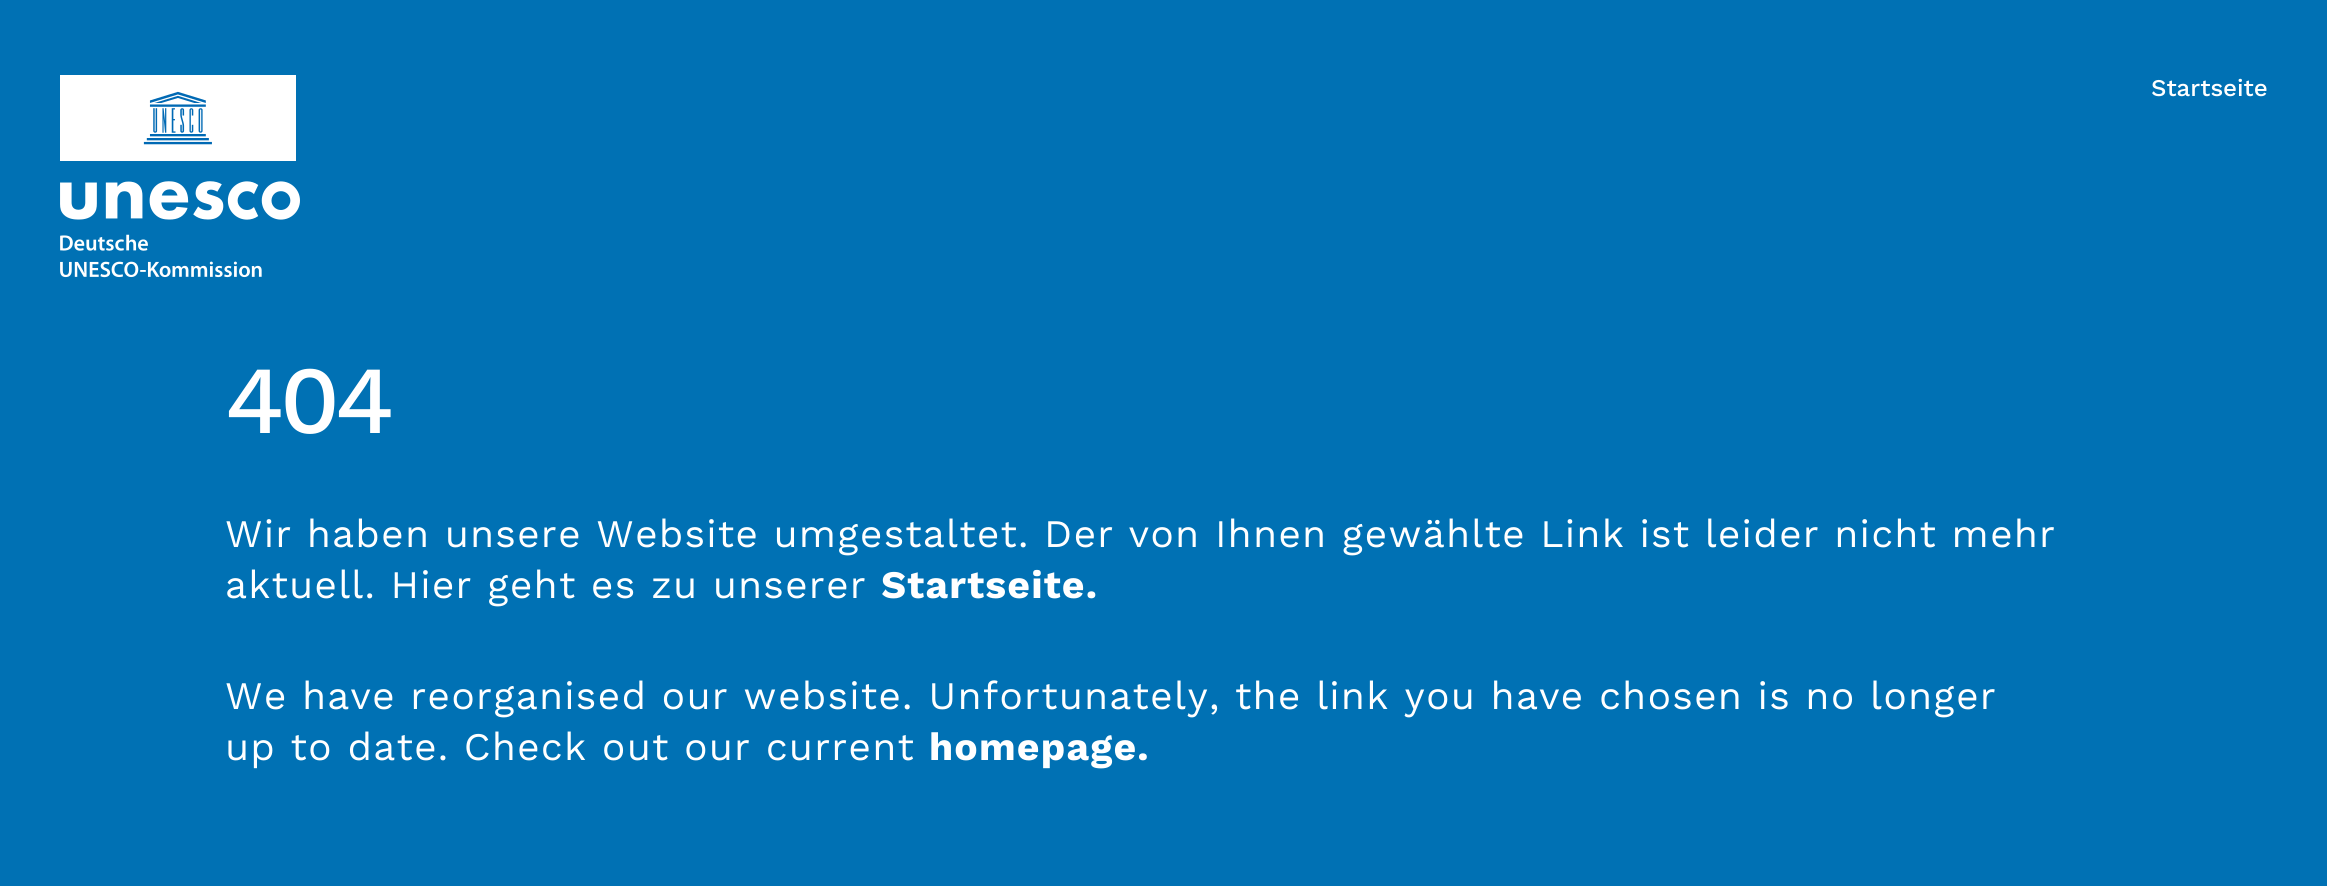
import math
import cairo

surface = cairo.ImageSurface(cairo.Format.RGB24, 2327, 886)
ctx = cairo.Context(surface)
options = cairo.FontOptions()
options.set_hint_metrics(cairo.HintMetrics.OFF)
options.set_hint_style(cairo.HintStyle.NONE)
ctx.set_font_options(options)
ctx.set_miter_limit(4)


def ink(r, g, b):
    ctx.set_source_rgb(r / 255, g / 255, b / 255)


def write(x, y, s, family, size, color, bold=False, italic=False):
    ctx.select_font_face(family, cairo.FontSlant.ITALIC if italic else cairo.FontSlant.NORMAL, cairo.FontWeight.BOLD if bold else cairo.FontWeight.NORMAL)
    ctx.set_font_size(size)
    ink(*color)
    ctx.move_to(x, y)
    ctx.show_text(s)


def write_spaced(x, y, s, letter, word):
    ctx.move_to(x, y)
    for ch in s:
        ctx.show_text(ch)
        ctx.rel_move_to(letter + word * (ch == ' '), 0)


def paste(path, x, y, w, h):
    ctx.save()
    ctx.set_source_surface(cairo.ImageSurface.create_from_png(path), x, y)
    ctx.rectangle(x, y, w, h)
    ctx.fill()
    ctx.restore()


s1 = dict(family="Work Sans Medium", size=24, color=(255, 255, 255))

ink(0, 113, 180)
ctx.paint()
paste("pic1.png", 60, 75, 240, 203)
write(2151, 96, "Startseite", **s1)
ctx.set_font_size(96)
write_spaced(225, 433, "404", -5, 0)
ctx.select_font_face("Work Sans")
ctx.set_font_size(39)
write_spaced(225, 547, "Wir haben unsere Website umgestaltet. Der von Ihnen gewählte Link ist leider nicht mehr", 1.17, 0)
write_spaced(225, 598, "aktuell. Hier geht es zu unserer", 1.17, 0)
ctx.select_font_face("Work Sans", cairo.FontSlant.NORMAL, cairo.FontWeight.BOLD)
write_spaced(881, 598, "Startseite.", 1.17, 0)
ctx.select_font_face("Work Sans")
write_spaced(225, 709, "We have reorganised our website. Unfortunately, the link you have chosen is no longer", 1.17, 0)
write_spaced(225, 760, "up to date. Check out our current", 1.17, 0)
ctx.select_font_face("Work Sans", cairo.FontSlant.NORMAL, cairo.FontWeight.BOLD)
write_spaced(929, 760, "homepage.", 1.17, 0)
surface.write_to_png("screenshot.png")
